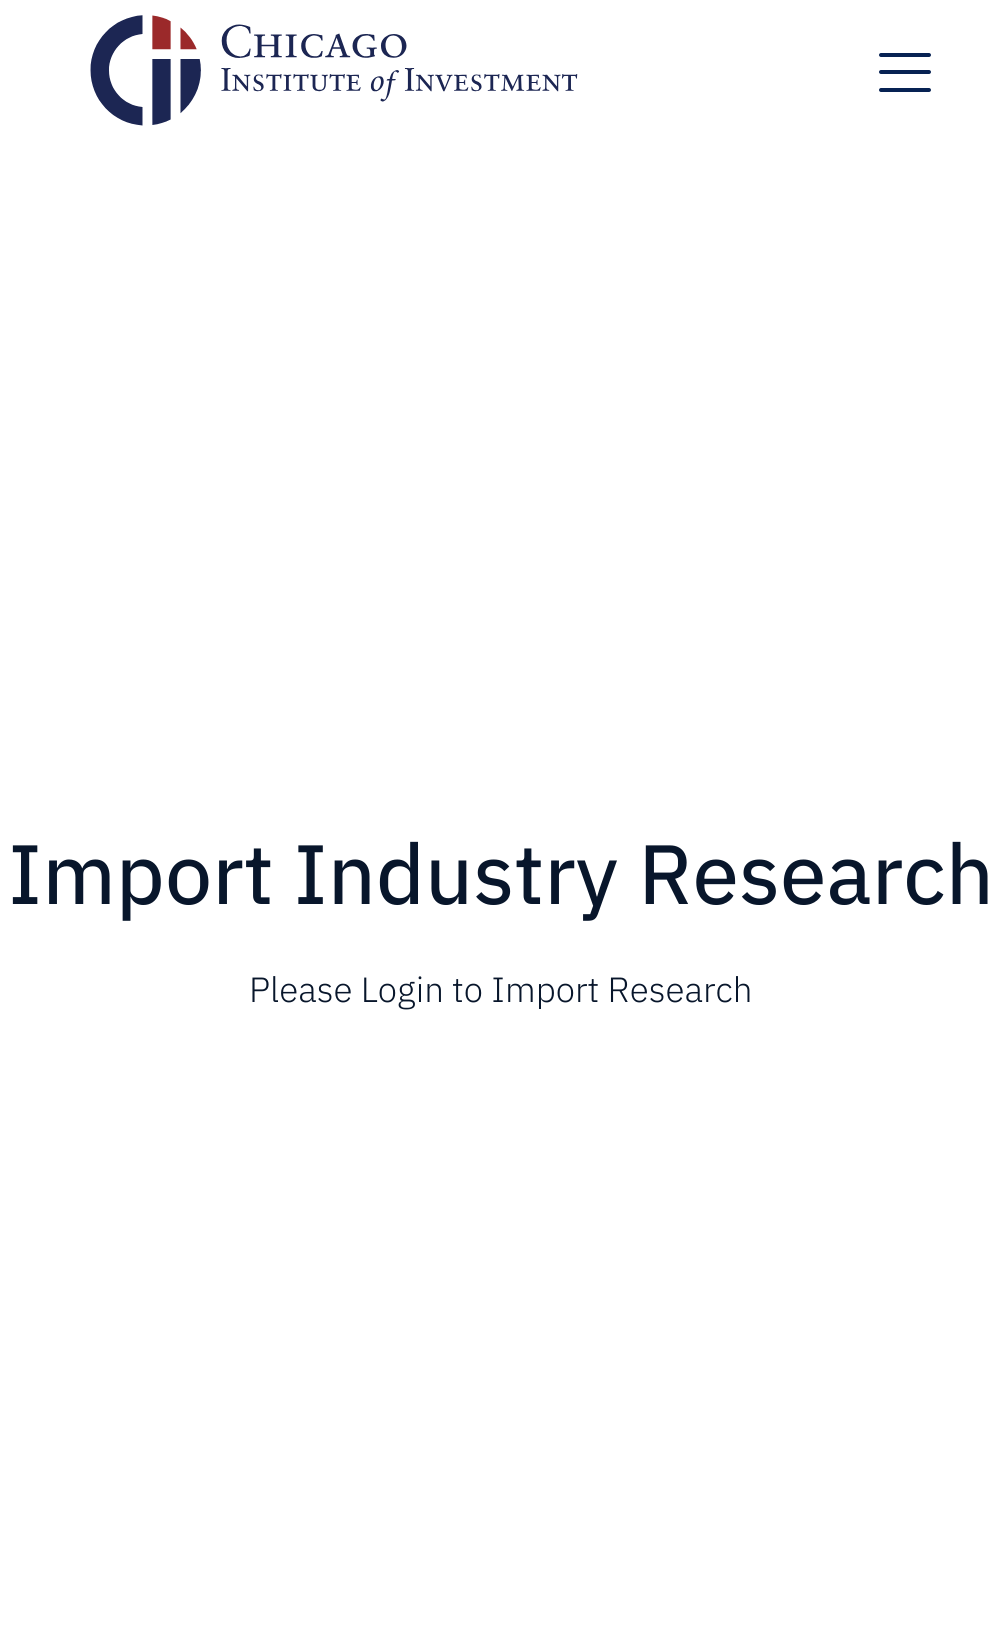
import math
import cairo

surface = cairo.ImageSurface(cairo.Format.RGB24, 1001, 1631)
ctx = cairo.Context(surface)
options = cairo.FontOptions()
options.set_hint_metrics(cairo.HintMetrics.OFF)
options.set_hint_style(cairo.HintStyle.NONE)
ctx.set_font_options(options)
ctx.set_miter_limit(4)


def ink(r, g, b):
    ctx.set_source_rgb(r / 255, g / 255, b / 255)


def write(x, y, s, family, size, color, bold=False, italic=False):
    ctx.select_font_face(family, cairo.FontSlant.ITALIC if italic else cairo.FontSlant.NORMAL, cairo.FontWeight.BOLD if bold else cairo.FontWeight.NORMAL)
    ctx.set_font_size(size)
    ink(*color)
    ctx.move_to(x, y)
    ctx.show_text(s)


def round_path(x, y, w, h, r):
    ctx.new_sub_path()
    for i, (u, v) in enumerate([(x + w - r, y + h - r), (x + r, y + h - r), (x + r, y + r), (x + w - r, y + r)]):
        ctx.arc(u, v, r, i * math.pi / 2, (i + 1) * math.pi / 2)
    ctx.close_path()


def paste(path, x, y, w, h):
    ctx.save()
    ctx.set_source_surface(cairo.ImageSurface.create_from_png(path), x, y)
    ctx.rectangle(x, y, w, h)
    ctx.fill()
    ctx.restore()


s1 = dict(family="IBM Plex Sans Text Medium", size=84, color=(8, 22, 43))
s2 = dict(family="IBM Plex Sans Light", size=35, color=(8, 22, 43))

ink(255, 255, 255)
ctx.paint()
paste("pic1.png", 90, 15, 488, 111)
ink(7, 34, 83)
round_path(879, 53, 52, 4, 2)
ctx.fill()
round_path(879, 70, 52, 4, 2)
ctx.fill()
round_path(879, 88, 52, 4, 2)
ctx.fill()
write(8, 904, "Import Industry Research", **s1)
write(249, 1002, "Please Login to Import Research", **s2)
surface.write_to_png("screenshot.png")
